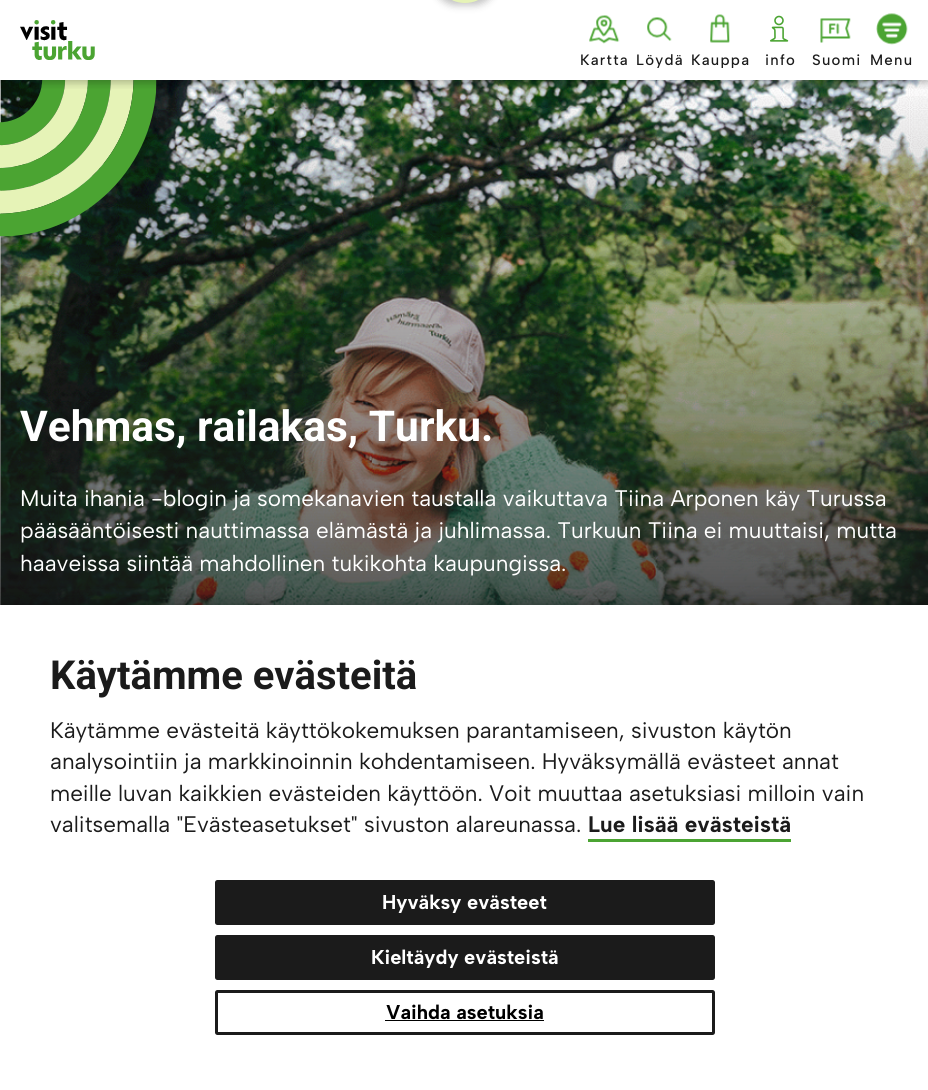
import math
import cairo

surface = cairo.ImageSurface(cairo.Format.RGB24, 928, 1090)
ctx = cairo.Context(surface)
options = cairo.FontOptions()
options.set_hint_metrics(cairo.HintMetrics.OFF)
options.set_hint_style(cairo.HintStyle.NONE)
ctx.set_font_options(options)
ctx.set_miter_limit(4)


def ink(r, g, b):
    ctx.set_source_rgb(r / 255, g / 255, b / 255)


def write(x, y, s, family, size, color, bold=False, italic=False):
    ctx.select_font_face(family, cairo.FontSlant.ITALIC if italic else cairo.FontSlant.NORMAL, cairo.FontWeight.BOLD if bold else cairo.FontWeight.NORMAL)
    ctx.set_font_size(size)
    ink(*color)
    ctx.move_to(x, y)
    ctx.show_text(s)


def write_spaced(x, y, s, letter, word):
    ctx.move_to(x, y)
    for ch in s:
        ctx.show_text(ch)
        ctx.rel_move_to(letter + word * (ch == ' '), 0)


def block(x, y, w, h, *color):
    ink(*color)
    ctx.rectangle(x, y, w, h)
    ctx.fill()


def round_path(x, y, w, h, r):
    ctx.new_sub_path()
    for i, (u, v) in enumerate([(x + w - r, y + h - r), (x + r, y + h - r), (x + r, y + r), (x + w - r, y + r)]):
        ctx.arc(u, v, r, i * math.pi / 2, (i + 1) * math.pi / 2)
    ctx.close_path()


def blur_box(x, y, w, h, r, blur, alpha):
    ctx.push_group_with_content(cairo.Content.ALPHA)
    ctx.set_operator(cairo.Operator.SOURCE)
    for i in range(15, -16, -2):
        e = blur * i / 6
        if min(w, h) + 2 * e > 0:
            ctx.set_source_rgba(0, 0, 0, alpha * math.erfc((i - 1) / 8.5) / 2)
            round_path(x - e, y - e, w + 2 * e, h + 2 * e, max(0, min(r + e + blur * .6, min(w, h) / 2 + e)))
            ctx.fill()
    ctx.mask(ctx.pop_group())


def paste(path, x, y, w, h):
    ctx.save()
    ctx.set_source_surface(cairo.ImageSurface.create_from_png(path), x, y)
    ctx.rectangle(x, y, w, h)
    ctx.fill()
    ctx.restore()


s1 = dict(family="Roboto", size=42.5, color=(255, 255, 255), bold=True)
s2 = dict(family="Albert Sans", size=22.5, color=(255, 255, 255))
s3 = dict(family="Roboto", size=40, color=(27, 27, 27), bold=True)
s4 = dict(family="Albert Sans", size=22.5, color=(27, 27, 27))
s5 = dict(family="Albert Sans", size=22.5, color=(27, 27, 27), bold=True)
s6 = dict(family="Albert Sans", size=20, color=(255, 255, 255), bold=True)
s7 = dict(family="Albert Sans", size=20, color=(0, 0, 0), bold=True)

ink(255, 255, 255)
ctx.paint()
paste("pic8.png", 0, 80, 928, 525)
gradient = cairo.LinearGradient(464, 80, 464, 675)
gradient.add_color_stop_rgba(0, 0.106, 0.106, 0.106, 0)
gradient.add_color_stop_rgba(1, 0.106, 0.106, 0.106, 0.8)
ctx.set_source(gradient)
ctx.rectangle(0, 96, 928, 509)
ctx.fill()
paste("pic9.png", 0, 80, 157, 157)
ctx.save()
ctx.rectangle(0, 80, 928, 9)
ctx.clip()
ink(0, 0, 0)
blur_box(0, 3, 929, 80, 0, 4, 0.25)
ctx.restore()
ink(0, 0, 0)
blur_box(434, -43, 62, 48, 31, 4, 0.25)
round_path(436.5, -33.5, 57, 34, 28.5)
ink(230, 243, 183)
ctx.set_line_width(5)
ctx.stroke()
paste("pic1.png", 20, 20, 75, 40)
paste("pic2.png", 589, 15, 31, 29)
ctx.select_font_face("Albert Sans Medium")
ctx.set_font_size(15)
ink(27, 27, 27)
write_spaced(580, 65, "Kartta", 1.25, 0)
paste("pic3.png", 647, 17, 25, 24)
write_spaced(636, 65, "Löydä", 1.25, 0)
paste("pic4.png", 710, 14, 20, 29)
write_spaced(691, 65, "Kauppa", 1.25, 0)
paste("pic5.png", 770, 15, 19, 27)
write_spaced(765, 65, "info", 1.25, 0)
paste("pic6.png", 820, 18, 31, 25)
write_spaced(812, 65, "Suomi", 1.25, 0)
paste("pic7.png", 876, 13, 32, 32)
write_spaced(870, 65, "Menu", 1.25, 0)
write(20, 441, "Vehmas, railakas, Turku.", **s1)
write(20, 506, "Muita ihania -blogin ja somekanavien taustalla vaikuttava Tiina Arponen käy Turussa", **s2)
write(20, 538, "pääsääntöisesti nauttimassa elämästä ja juhlimassa. Turkuun Tiina ei muuttaisi, mutta", **s2)
write(20, 571, "haaveissa siintää mahdollinen tukikohta kaupungissa.", **s2)
ink(0, 0, 0)
blur_box(0, 605, 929, 485, 0, 12.5, 0.3)
block(0, 605, 928, 485, 255, 255, 255)
write(50, 689, "Käytämme evästeitä", **s3)
write(50, 738, "Käytämme evästeitä käyttökokemuksen parantamiseen, sivuston käytön", **s4)
write(50, 769, "analysointiin ja markkinoinnin kohdentamiseen. Hyväksymällä evästeet annat", **s4)
write(50, 801, "meille luvan kaikkien evästeiden käyttöön. Voit muuttaa asetuksiasi milloin vain", **s4)
write(50, 832, "valitsemalla \"Evästeasetukset\" sivuston alareunassa.", **s4)
write(588, 832, "Lue lisää evästeistä", **s5)
block(588, 839, 203, 3, 75, 164, 50)
ink(27, 27, 27)
round_path(216.5, 881.5, 497, 42, 1)
ctx.fill_preserve()
ctx.set_line_width(3)
ctx.stroke()
write(382, 909, "Hyväksy evästeet", **s6)
ink(27, 27, 27)
round_path(216.5, 936.5, 497, 42, 1)
ctx.fill_preserve()
ctx.stroke()
write(371, 964, "Kieltäydy evästeistä", **s6)
round_path(216.5, 991.5, 497, 42, 1)
ink(27, 27, 27)
ctx.stroke()
write(386, 1019, "Vaihda asetuksia", **s7)
block(385, 1020, 159, 1, 0, 0, 0)
surface.write_to_png("screenshot.png")
